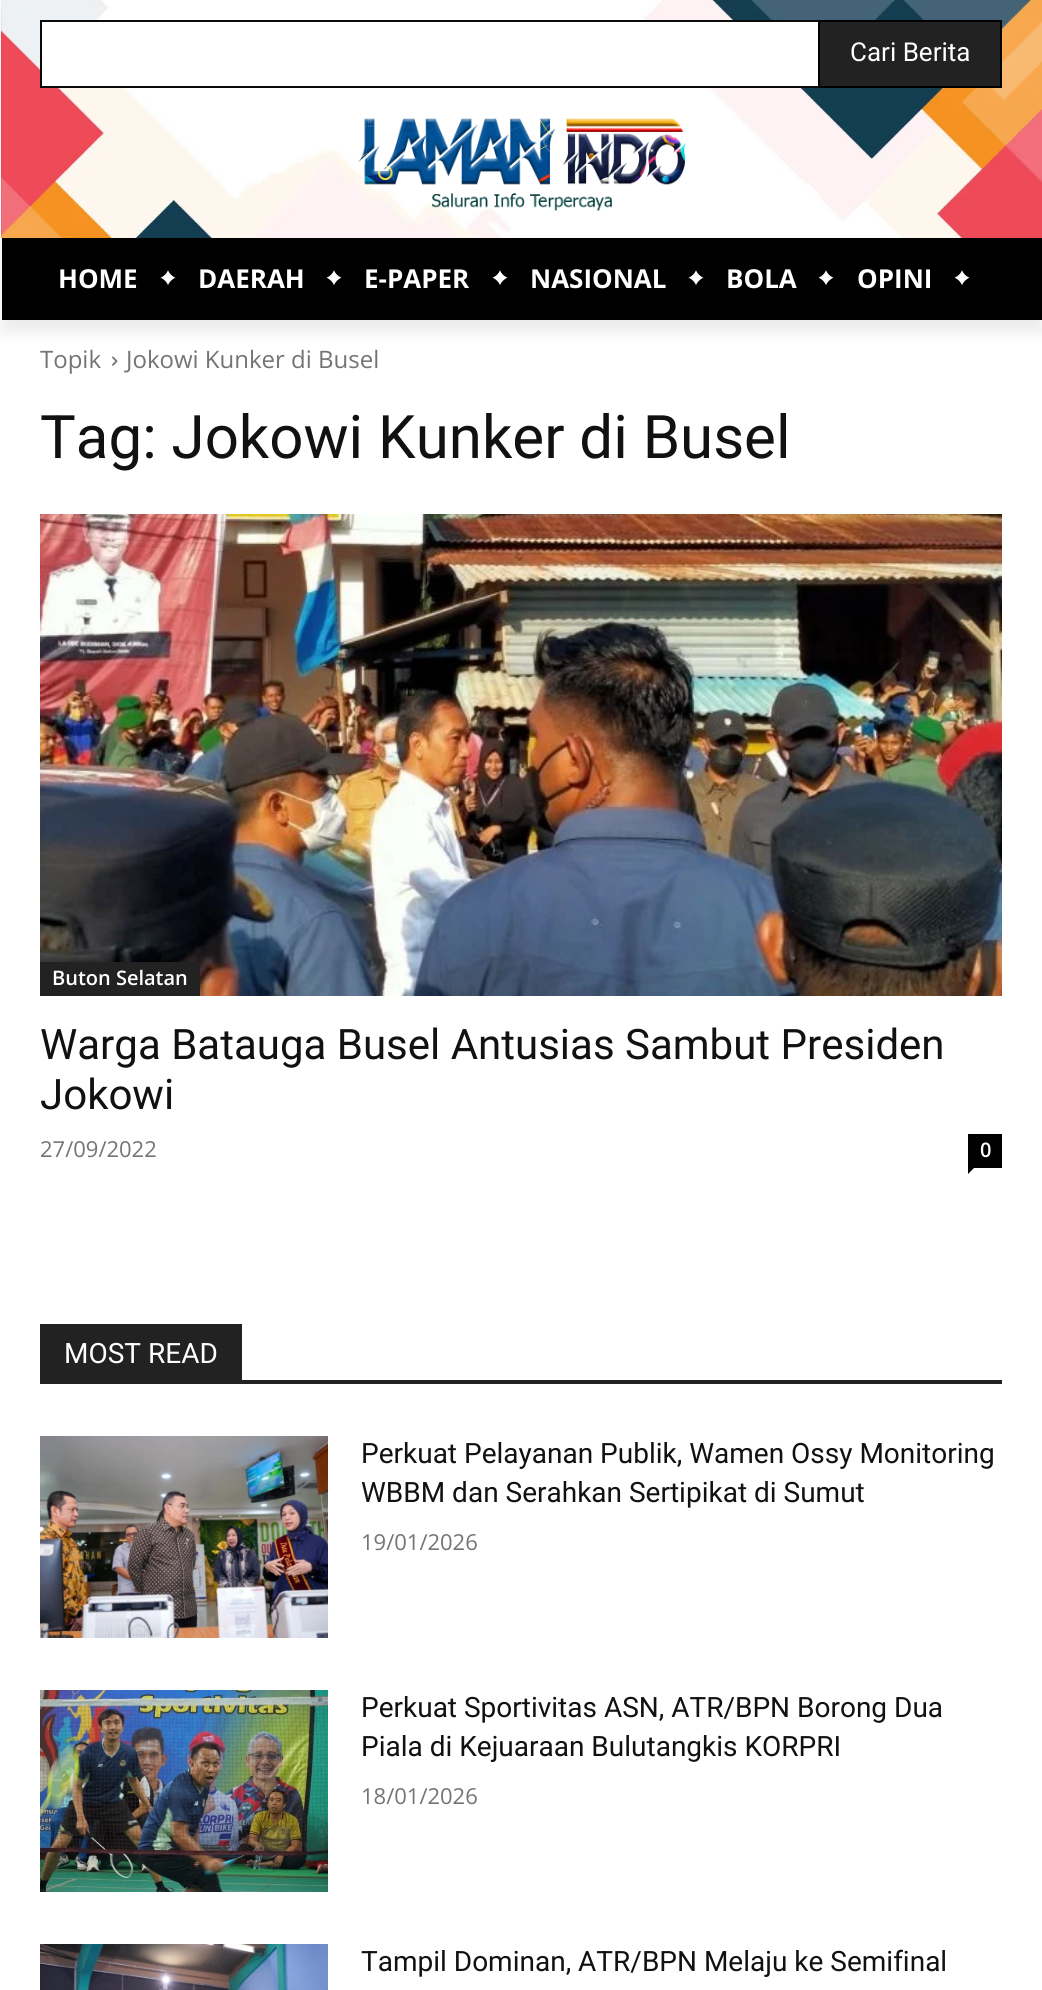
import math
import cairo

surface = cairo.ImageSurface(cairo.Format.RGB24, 1042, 1990)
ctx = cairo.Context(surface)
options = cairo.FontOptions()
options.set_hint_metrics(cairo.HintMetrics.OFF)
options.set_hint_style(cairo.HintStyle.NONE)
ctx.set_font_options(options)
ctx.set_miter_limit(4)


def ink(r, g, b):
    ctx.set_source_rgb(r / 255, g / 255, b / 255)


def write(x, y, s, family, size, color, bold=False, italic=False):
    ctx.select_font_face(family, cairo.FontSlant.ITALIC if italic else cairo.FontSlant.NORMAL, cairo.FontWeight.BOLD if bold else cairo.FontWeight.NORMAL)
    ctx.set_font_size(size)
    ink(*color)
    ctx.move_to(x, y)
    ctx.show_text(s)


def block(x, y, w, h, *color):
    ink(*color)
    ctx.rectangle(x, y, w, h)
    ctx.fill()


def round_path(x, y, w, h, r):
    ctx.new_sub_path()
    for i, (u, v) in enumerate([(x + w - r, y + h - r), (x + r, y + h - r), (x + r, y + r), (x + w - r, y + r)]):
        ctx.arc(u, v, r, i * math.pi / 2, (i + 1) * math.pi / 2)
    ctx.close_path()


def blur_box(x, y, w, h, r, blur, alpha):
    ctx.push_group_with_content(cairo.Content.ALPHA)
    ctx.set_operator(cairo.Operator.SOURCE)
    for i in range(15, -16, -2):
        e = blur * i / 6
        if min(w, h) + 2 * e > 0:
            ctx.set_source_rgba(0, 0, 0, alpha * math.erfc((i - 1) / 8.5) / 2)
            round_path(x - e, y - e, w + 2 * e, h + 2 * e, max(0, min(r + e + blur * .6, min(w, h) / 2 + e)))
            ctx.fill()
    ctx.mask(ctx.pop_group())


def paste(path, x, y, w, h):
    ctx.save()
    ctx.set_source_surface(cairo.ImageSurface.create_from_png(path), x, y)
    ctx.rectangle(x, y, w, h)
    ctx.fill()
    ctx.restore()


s1 = dict(family="Roboto", size=26, color=(255, 255, 255))
s2 = dict(family="Open Sans", size=26, color=(255, 255, 255), bold=True)
s3 = dict(family="Open Sans", size=24, color=(116, 116, 116))
s4 = dict(family="Roboto", size=60, color=(17, 17, 17))
s5 = dict(family="Open Sans SemiBold", size=20, color=(255, 255, 255))
s6 = dict(family="Roboto", size=42, color=(17, 17, 17))
s7 = dict(family="Open Sans", size=22, color=(116, 116, 116))
s8 = dict(family="Roboto", size=28, color=(255, 255, 255))
s9 = dict(family="Roboto", size=28, color=(17, 17, 17))

ink(255, 255, 255)
ctx.paint()
paste("pic1.png", 1, 0, 1041, 238)
block(42, 22, 776, 64, 255, 255, 255)
ctx.rectangle(41, 21, 960, 66)
ink(10, 10, 10)
ctx.stroke()
ink(34, 34, 34)
ctx.rectangle(819, 21, 182, 66)
ctx.fill_preserve()
ink(0, 0, 0)
ctx.stroke()
paste("pic2.png", 358, 118, 329, 93)
block(2, 238, 1040, 82, 0, 0, 0)
paste("pic4.png", 112, 356, 6, 10)
ctx.save()
ctx.set_fill_rule(cairo.FillRule.EVEN_ODD)
ctx.new_path()
ctx.move_to(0, 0)
ctx.line_to(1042, 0)
ctx.line_to(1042, 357)
ctx.line_to(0, 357)
ctx.close_path()
ctx.move_to(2, 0)
ctx.line_to(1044, 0)
ctx.line_to(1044, 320)
ctx.line_to(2, 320)
ctx.close_path()
ctx.clip()
ink(0, 0, 0)
blur_box(2, 12, 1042, 320, 0, 8, 0.08)
ctx.restore()
write(850, 61, "Cari Berita", **s1)
write(58, 288, "HOME", **s2)
paste("pic3.png", 160, 270, 16, 15)
write(198, 288, "DAERAH", **s2)
paste("pic3.png", 326, 270, 16, 15)
write(364, 288, "E-PAPER", **s2)
paste("pic3.png", 492, 270, 16, 15)
write(530, 288, "NASIONAL", **s2)
paste("pic3.png", 688, 270, 16, 15)
write(726, 288, "BOLA", **s2)
paste("pic3.png", 818, 270, 16, 15)
write(857, 288, "OPINI", **s2)
paste("pic3.png", 954, 270, 16, 15)
write(40, 368, "Topik", **s3)
write(126, 368, "Jokowi Kunker di Busel", **s3)
write(40, 458, "Tag: Jokowi Kunker di Busel", **s4)
paste("pic5.png", 40, 514, 962, 482)
block(40, 962, 160, 34, 34, 34, 34)
write(52, 985, "Buton Selatan", **s5)
write(40, 1059, "Warga Batauga Busel Antusias Sambut Presiden", **s6)
write(40, 1109, "Jokowi", **s6)
write(40, 1157, "27/09/2022", **s7)
block(968, 1134, 34, 34, 0, 0, 0)
write(980, 1157, "0", **s5)
ink(0, 0, 0)
ctx.new_path()
ctx.move_to(968, 1168)
ctx.line_to(974, 1168)
ctx.line_to(968, 1174)
ctx.close_path()
ctx.fill()
block(40, 1380, 962, 4, 34, 34, 34)
block(40, 1324, 202, 56, 34, 34, 34)
write(64, 1363, "MOST READ", **s8)
paste("pic6.png", 40, 1436, 288, 202)
write(361, 1463, "Perkuat Pelayanan Publik, Wamen Ossy Monitoring", **s9)
write(361, 1502, "WBBM dan Serahkan Sertipikat di Sumut", **s9)
write(361, 1550, "19/01/2026", **s7)
paste("pic7.png", 40, 1690, 288, 202)
write(361, 1717, "Perkuat Sportivitas ASN, ATR/BPN Borong Dua", **s9)
write(361, 1756, "Piala di Kejuaraan Bulutangkis KORPRI", **s9)
write(361, 1804, "18/01/2026", **s7)
paste("pic8.png", 40, 1944, 288, 46)
write(361, 1971, "Tampil Dominan, ATR/BPN Melaju ke Semifinal", **s9)
surface.write_to_png("screenshot.png")
